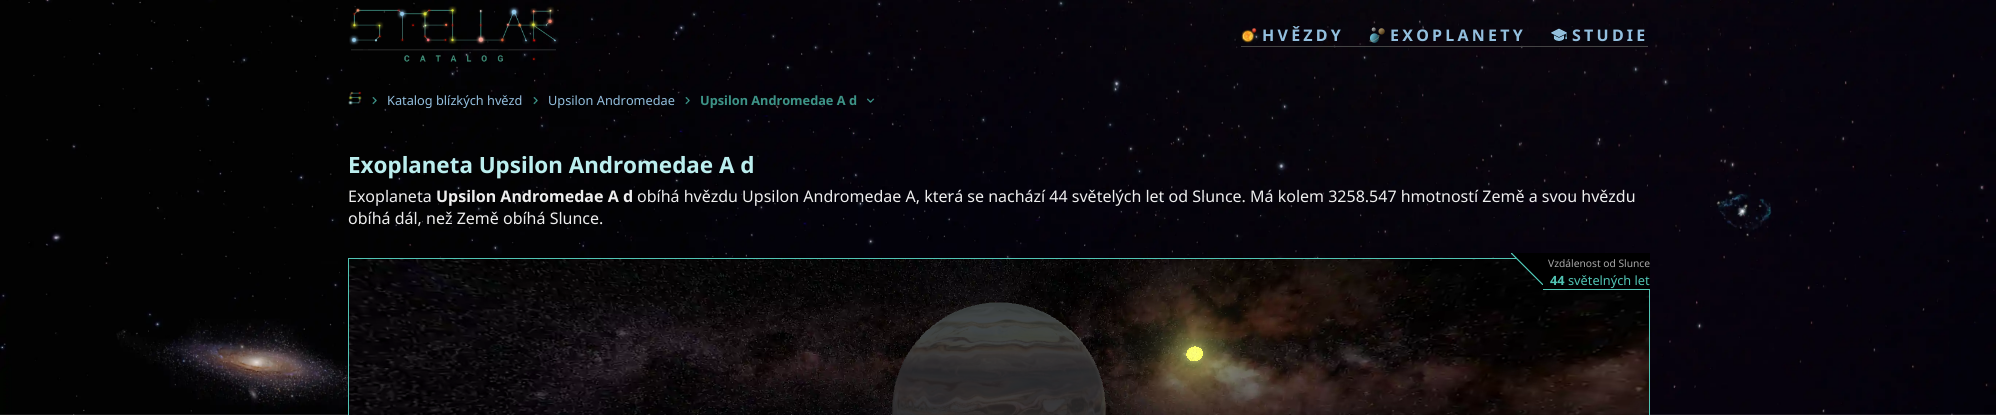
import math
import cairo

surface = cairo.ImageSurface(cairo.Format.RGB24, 1996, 415)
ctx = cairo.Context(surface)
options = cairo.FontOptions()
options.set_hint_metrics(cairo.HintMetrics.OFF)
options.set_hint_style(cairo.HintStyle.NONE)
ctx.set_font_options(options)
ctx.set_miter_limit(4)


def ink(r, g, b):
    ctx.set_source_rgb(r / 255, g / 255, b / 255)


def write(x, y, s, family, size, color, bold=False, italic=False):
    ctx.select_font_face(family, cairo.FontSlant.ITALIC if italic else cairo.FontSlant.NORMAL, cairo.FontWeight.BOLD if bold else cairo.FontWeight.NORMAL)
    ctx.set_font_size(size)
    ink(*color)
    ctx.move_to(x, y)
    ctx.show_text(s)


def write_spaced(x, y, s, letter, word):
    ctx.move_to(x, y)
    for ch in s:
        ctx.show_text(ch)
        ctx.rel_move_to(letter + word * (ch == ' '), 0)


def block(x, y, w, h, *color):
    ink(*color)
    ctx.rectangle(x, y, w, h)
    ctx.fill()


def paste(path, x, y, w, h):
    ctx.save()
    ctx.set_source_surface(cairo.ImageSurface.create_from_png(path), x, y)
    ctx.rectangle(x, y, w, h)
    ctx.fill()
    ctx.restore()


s1 = dict(family="Noto Sans", size=12.75, color=(147, 191, 222))
s2 = dict(family="Noto Sans", size=12.75, color=(61, 147, 135), bold=True)
s3 = dict(family="Noto Sans", size=22.4, color=(187, 238, 238), bold=True)
s4 = dict(family="Noto Sans", size=16, color=(238, 238, 238))
s5 = dict(family="Noto Sans", size=16, color=(238, 238, 238), bold=True)
s6 = dict(family="Noto Sans", size=10.25, color=(168, 168, 168))
s7 = dict(family="Noto Sans", size=12.75, color=(81, 196, 180), bold=True)
s8 = dict(family="Noto Sans", size=12.75, color=(81, 196, 180))

ink(255, 255, 255)
ctx.paint()
paste("pic1.png", 0, 0, 1996, 415)
paste("pic2.png", 349, 6, 210, 56)
block(1241, 46, 407, 1, 68, 68, 68)
paste("pic3.png", 1241, 28, 16, 15)
ctx.select_font_face("Noto Sans", cairo.FontSlant.NORMAL, cairo.FontWeight.BOLD)
ctx.set_font_size(16)
ink(147, 191, 222)
write_spaced(1262, 41, "HVĚZDY", 3.25, 0)
paste("pic4.png", 1369, 27, 16, 16)
write_spaced(1390, 41, "EXOPLANETY", 3.25, 0)
paste("pic5.png", 1551, 28, 16, 13)
write_spaced(1572, 41, "STUDIE", 3.25, 0)
paste("pic6.png", 348, 91, 14, 14)
paste("pic7.png", 372, 97, 5, 8)
write(387, 105, "Katalog blízkých hvězd", **s1)
paste("pic8.png", 533, 97, 5, 8)
write(548, 105, "Upsilon Andromedae", **s1)
paste("pic9.png", 685, 97, 5, 8)
write(700, 105, "Upsilon Andromedae A d", **s2)
paste("pic10.png", 867, 98, 8, 5)
write(348, 173, "Exoplaneta Upsilon Andromedae A d", **s3)
write(348, 202, "Exoplaneta", **s4)
write(436, 202, "Upsilon Andromedae A d", **s5)
write(637, 202, "obíhá hvězdu Upsilon Andromedae A, která se nachází 44 světelých let od Slunce. Má kolem 3258.547 hmotností Země a svou hvězdu", **s4)
write(348, 224, "obíhá dál, než Země obíhá Slunce.", **s4)
ctx.rectangle(348.5, 258.5, 1301, 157)
ink(81, 196, 180)
ctx.set_line_width(1)
ctx.stroke()
paste("pic11.png", 349, 259, 1300, 156)
paste("pic12.png", 1511, 253, 32, 32)
block(1543, 253, 107, 36, 0, 0, 0)
block(1543, 289, 107, 1, 81, 196, 180)
write(1548, 267, "Vzdálenost od Slunce", **s6)
write(1550, 285, "44", **s7)
write(1568, 285, "světelných let", **s8)
surface.write_to_png("screenshot.png")
